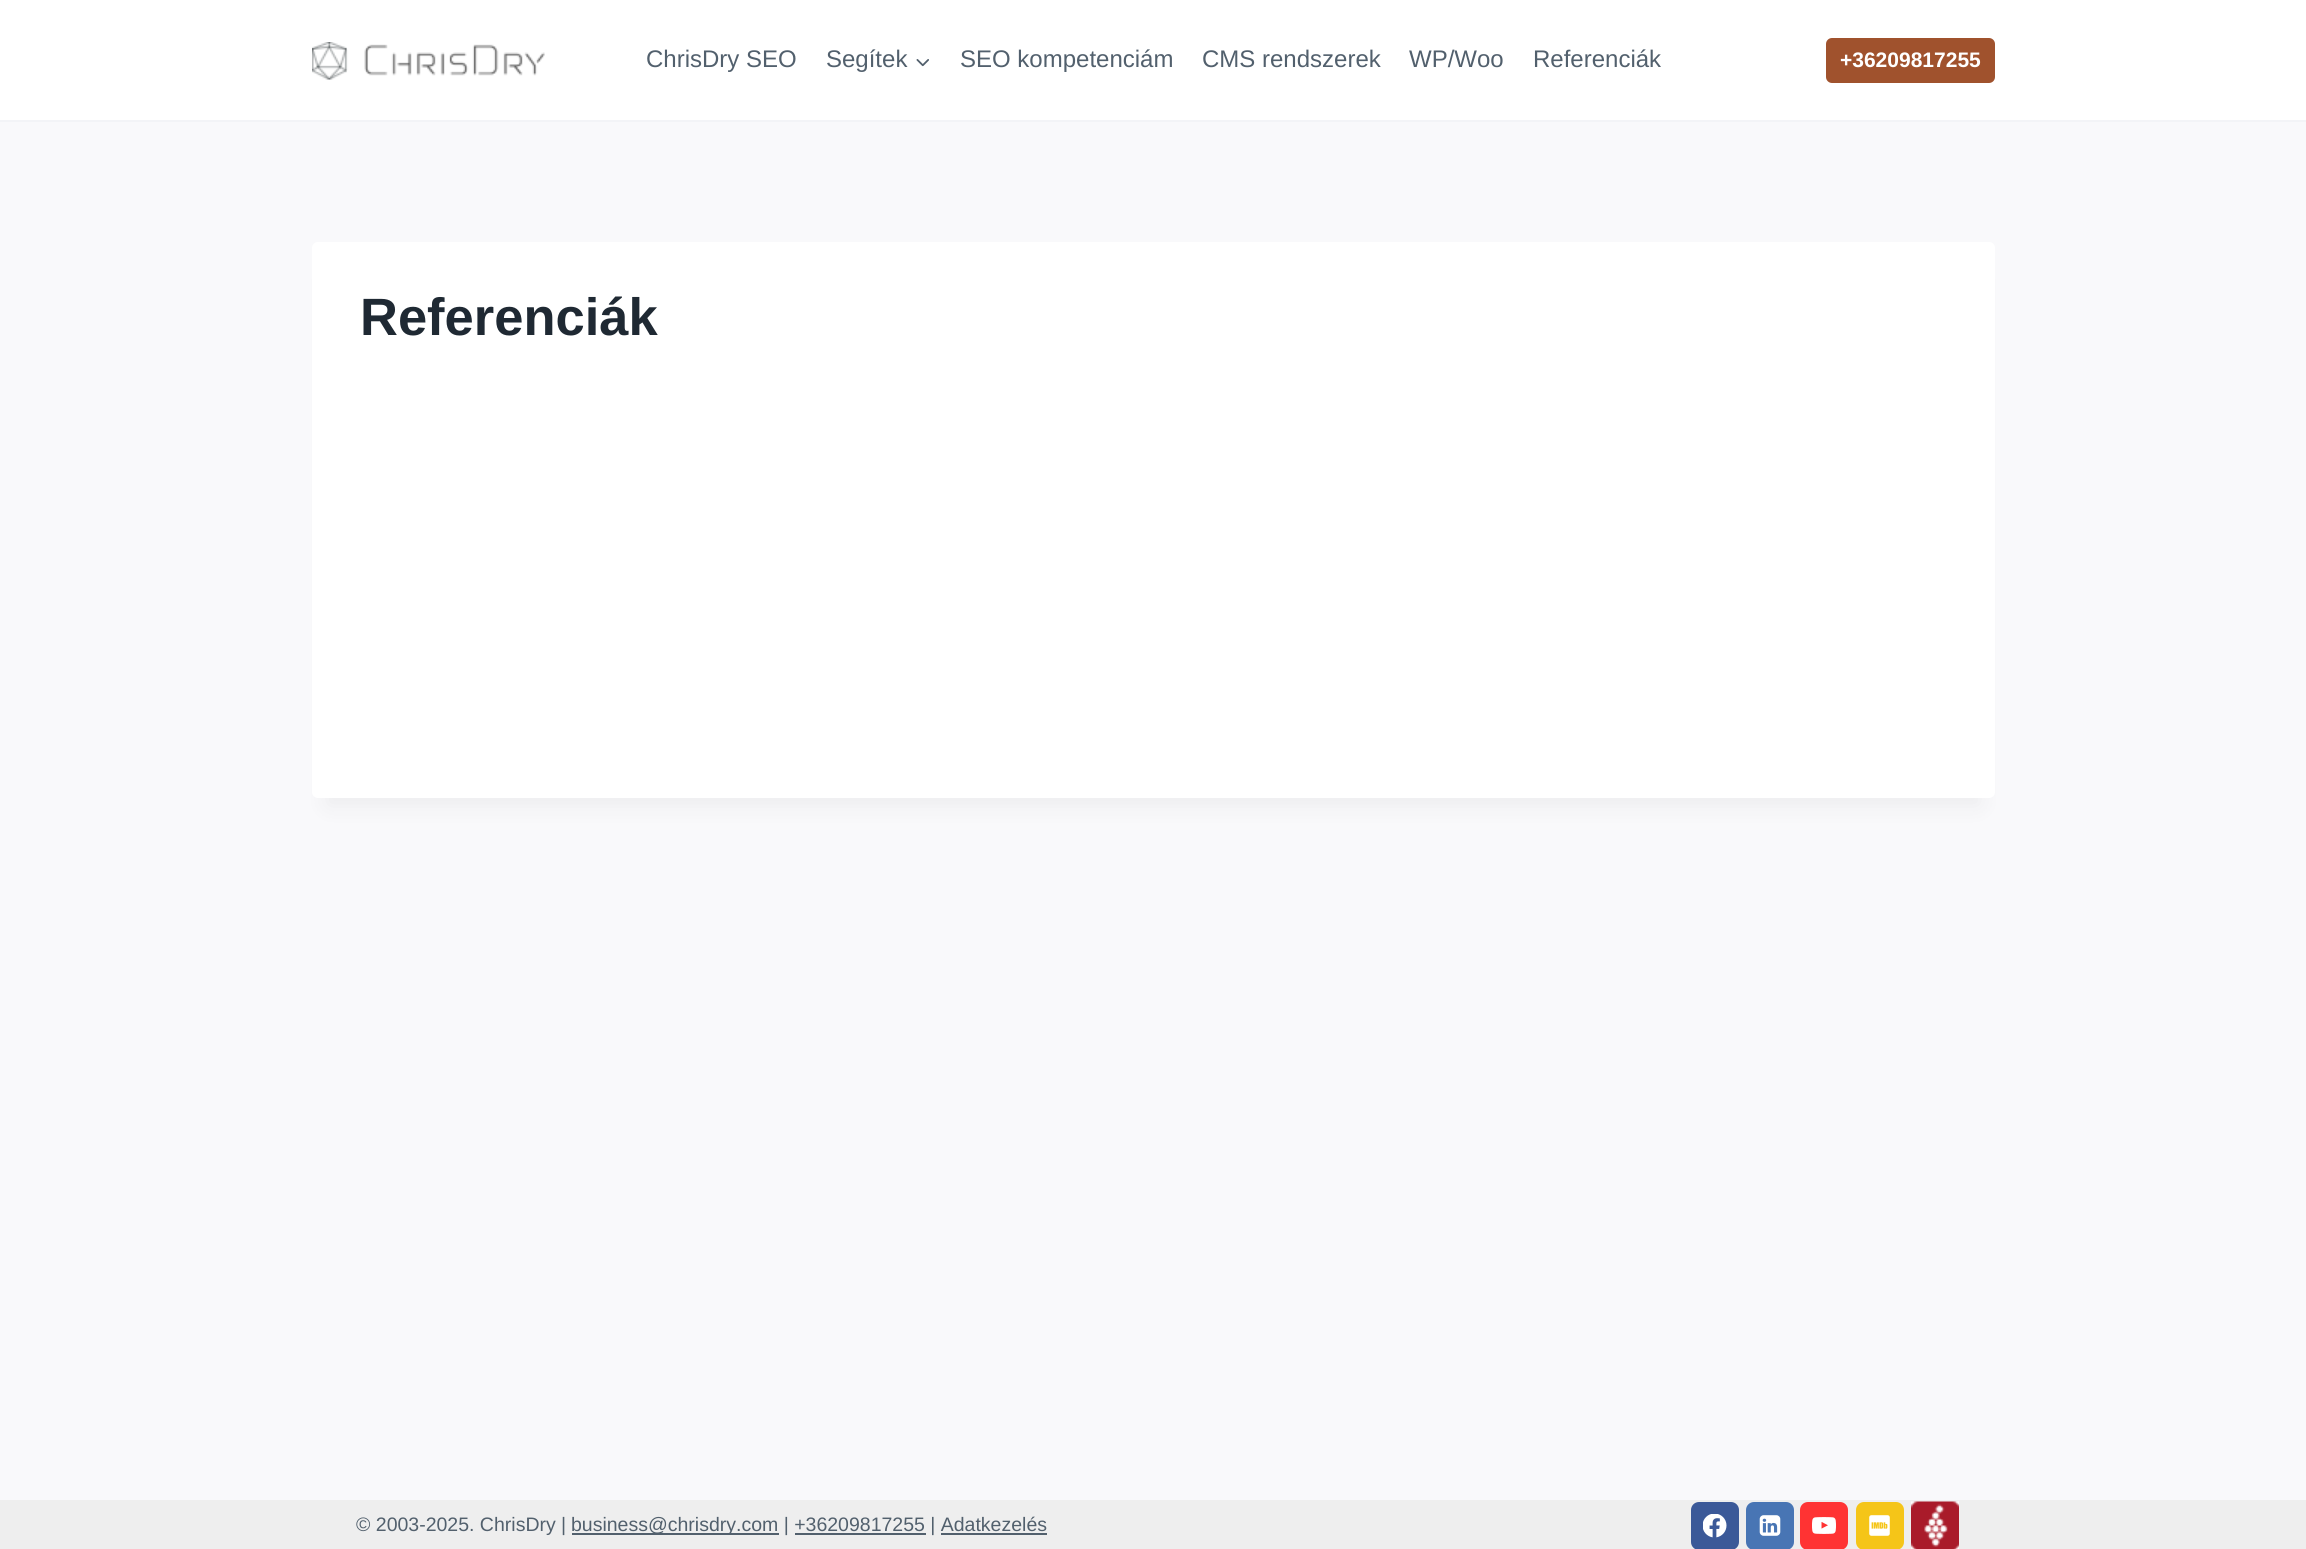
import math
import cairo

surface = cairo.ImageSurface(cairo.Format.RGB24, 2306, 1549)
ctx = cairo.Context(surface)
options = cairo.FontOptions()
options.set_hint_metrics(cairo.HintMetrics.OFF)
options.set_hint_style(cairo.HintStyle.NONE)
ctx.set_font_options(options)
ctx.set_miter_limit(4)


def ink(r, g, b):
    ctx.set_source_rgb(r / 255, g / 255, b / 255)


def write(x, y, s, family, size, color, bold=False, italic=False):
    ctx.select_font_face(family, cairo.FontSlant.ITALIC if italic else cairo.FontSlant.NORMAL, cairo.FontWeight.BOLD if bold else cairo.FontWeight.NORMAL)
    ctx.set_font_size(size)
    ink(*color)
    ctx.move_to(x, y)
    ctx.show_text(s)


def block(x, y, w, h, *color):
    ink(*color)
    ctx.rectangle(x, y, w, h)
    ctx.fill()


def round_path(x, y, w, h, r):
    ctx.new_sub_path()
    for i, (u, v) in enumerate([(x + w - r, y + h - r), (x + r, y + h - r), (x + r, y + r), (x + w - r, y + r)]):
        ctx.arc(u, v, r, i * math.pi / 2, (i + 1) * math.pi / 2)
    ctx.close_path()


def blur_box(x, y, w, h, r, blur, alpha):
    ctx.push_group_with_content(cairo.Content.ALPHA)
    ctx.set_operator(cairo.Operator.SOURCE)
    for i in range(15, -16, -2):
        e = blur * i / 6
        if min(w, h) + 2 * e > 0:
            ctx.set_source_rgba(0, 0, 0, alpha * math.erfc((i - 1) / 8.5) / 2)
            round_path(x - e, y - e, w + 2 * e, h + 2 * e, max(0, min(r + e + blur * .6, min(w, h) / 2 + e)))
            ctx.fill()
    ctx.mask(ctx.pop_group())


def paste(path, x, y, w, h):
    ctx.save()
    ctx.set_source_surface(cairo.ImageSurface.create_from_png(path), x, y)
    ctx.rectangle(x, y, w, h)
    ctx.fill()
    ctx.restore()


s1 = dict(family="Liberation Sans", size=24, color=(82, 96, 109))
s2 = dict(family="Liberation Sans", size=21, color=(255, 255, 255), bold=True)
s3 = dict(family="Liberation Sans", size=52.5, color=(31, 41, 51), bold=True)
s4 = dict(family="Liberation Sans", size=19.5, color=(82, 96, 109))

ink(249, 249, 251)
ctx.paint()
block(0, 0, 2306, 120, 255, 255, 255)
block(0, 120, 2306, 2, 243, 244, 247)
paste("pic1.png", 312, 42, 233, 38)
write(646, 67, "ChrisDry SEO", **s1)
write(826, 67, "Segítek", **s1)
paste("pic2.png", 916, 59, 13, 8)
write(960, 67, "SEO kompetenciám", **s1)
write(1202, 67, "CMS rendszerek", **s1)
write(1409, 67, "WP/Woo", **s1)
write(1533, 67, "Referenciák", **s1)
ink(160, 82, 45)
round_path(1826, 38, 169, 45, 6)
ctx.fill()
write(1840, 67, "+36209817255", **s2)
ink(0, 0, 0)
blur_box(327, 279, 1653, 527, 0, 11, 0.05)
ink(255, 255, 255)
round_path(312, 242, 1683, 556, 6)
ctx.fill()
write(360, 335, "Referenciák", **s3)
block(0, 1500, 2306, 49, 238, 238, 238)
write(356, 1531, "© 2003-2025. ChrisDry |", **s4)
block(572, 1533, 207, 2, 82, 96, 109)
write(571, 1531, "business@chrisdry.com | +36209817255 | Adatkezelés", **s4)
block(795, 1533, 131, 2, 82, 96, 109)
block(941, 1533, 106, 2, 82, 96, 109)
ink(59, 89, 152)
round_path(1691, 1502, 48, 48, 8)
ctx.fill()
paste("pic3.png", 1703, 1514, 24, 24)
ink(72, 117, 180)
round_path(1746, 1502, 48, 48, 8)
ctx.fill()
paste("pic4.png", 1759, 1515, 22, 21)
ink(255, 51, 51)
round_path(1800, 1502, 48, 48, 8)
ctx.fill()
paste("pic5.png", 1812, 1517, 24, 17)
ink(245, 197, 24)
round_path(1856, 1502, 48, 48, 8)
ctx.fill()
paste("pic6.png", 1869, 1515, 21, 21)
paste("pic7.png", 1911, 1501, 48, 48)
surface.write_to_png("screenshot.png")
